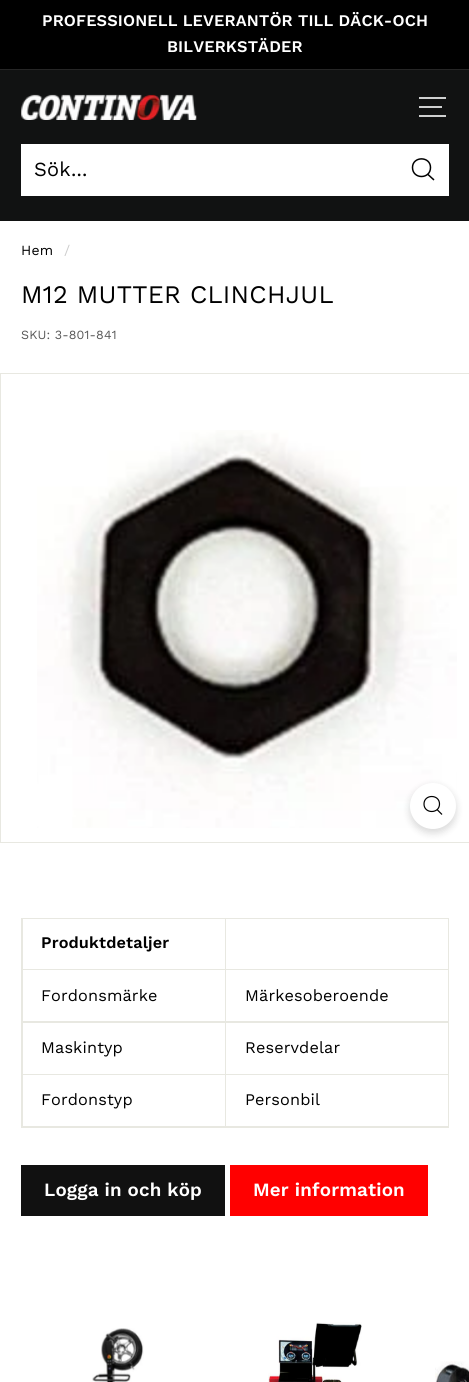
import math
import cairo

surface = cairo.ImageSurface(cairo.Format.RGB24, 469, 1382)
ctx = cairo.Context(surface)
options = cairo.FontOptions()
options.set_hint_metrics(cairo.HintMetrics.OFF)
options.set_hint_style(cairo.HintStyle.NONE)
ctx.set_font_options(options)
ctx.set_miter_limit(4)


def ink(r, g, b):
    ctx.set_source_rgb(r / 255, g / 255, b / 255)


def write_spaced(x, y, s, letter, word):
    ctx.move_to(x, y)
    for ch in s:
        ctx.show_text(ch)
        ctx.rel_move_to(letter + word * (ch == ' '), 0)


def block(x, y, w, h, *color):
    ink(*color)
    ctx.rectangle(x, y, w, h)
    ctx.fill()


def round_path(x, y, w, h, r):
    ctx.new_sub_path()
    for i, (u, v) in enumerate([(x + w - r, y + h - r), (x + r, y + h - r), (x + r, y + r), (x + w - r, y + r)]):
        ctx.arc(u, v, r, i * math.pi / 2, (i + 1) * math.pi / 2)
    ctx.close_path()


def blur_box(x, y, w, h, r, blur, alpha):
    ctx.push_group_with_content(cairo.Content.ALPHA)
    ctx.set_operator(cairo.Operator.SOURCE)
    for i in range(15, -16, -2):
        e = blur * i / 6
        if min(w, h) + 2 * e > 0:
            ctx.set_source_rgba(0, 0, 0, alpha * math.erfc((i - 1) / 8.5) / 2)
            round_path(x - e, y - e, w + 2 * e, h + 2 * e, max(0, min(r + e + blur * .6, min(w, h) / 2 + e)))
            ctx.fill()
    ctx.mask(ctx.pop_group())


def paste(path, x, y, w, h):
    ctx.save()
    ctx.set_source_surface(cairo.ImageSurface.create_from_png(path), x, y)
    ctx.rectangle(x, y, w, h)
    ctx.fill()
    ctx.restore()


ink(255, 255, 255)
ctx.paint()
block(0, 0, 469, 69, 0, 0, 0)
ctx.select_font_face("Work Sans SemiBold")
ctx.set_font_size(16.25)
ink(255, 255, 255)
write_spaced(42, 26, "PROFESSIONELL LEVERANTÖR TILL DÄCK-OCH", 0.15, 0)
write_spaced(167, 52, "BILVERKSTÄDER", 0.15, 0)
block(0, 69, 469, 1, 38, 38, 38)
block(0, 70, 469, 151, 17, 18, 18)
paste("pic1.png", 21, 94, 176, 26)
block(419, 97, 27, 2, 207, 208, 208)
block(419, 106, 23, 2, 207, 208, 208)
block(419, 115, 27, 2, 207, 208, 208)
block(21, 144, 428, 52, 255, 255, 255)
ctx.select_font_face("Work Sans")
ctx.set_font_size(20)
ink(0, 0, 0)
write_spaced(34, 176, "Sök...", 0.25, 0)
ctx.new_path()
ctx.move_to(430.5, 167.5)
ctx.curve_to(430.5, 179.5, 412.5, 179.5, 412.5, 167.5)
ctx.curve_to(412.5, 156, 430.5, 156, 430.5, 167.5)
ctx.close_path()
ctx.move_to(434, 180)
ctx.line_to(428, 174.5)
ctx.set_line_width(1.5)
ctx.stroke()
ctx.set_font_size(14)
write_spaced(21, 255, "Hem", 0.15, 0)
ink(204, 204, 204)
write_spaced(64, 255, "/", 0.15, 0)
ctx.set_font_size(25.25)
ink(0, 0, 0)
write_spaced(21, 303, "M12 MUTTER CLINCHJUL", 0.25, 0)
ctx.set_font_size(12.5)
ink(89, 89, 89)
write_spaced(21, 339, "SKU: 3-801-841", 0.15, 0)
ctx.rectangle(0.5, 373.5, 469, 469)
ink(232, 232, 225)
ctx.set_line_width(1)
ctx.stroke()
paste("pic2.png", 37, 430, 420, 398)
ink(0, 0, 0)
blur_box(410, 786, 46, 47, 23, 4, 0.15)
ink(255, 255, 255)
ctx.arc(433, 806, 23, 0, 2 * math.pi)
ctx.fill()
ctx.new_path()
ctx.move_to(439.5, 804)
ctx.curve_to(439.5, 814, 424, 814, 424, 804)
ctx.curve_to(424, 794, 439.5, 794, 439.5, 804)
ctx.close_path()
ctx.move_to(442, 814.5)
ctx.line_to(437, 809.5)
ink(0, 0, 0)
ctx.set_line_width(1.2)
ctx.stroke()
block(21, 918, 428, 210, 232, 232, 225)
block(23, 919, 202, 50, 255, 255, 255)
ctx.select_font_face("Work Sans SemiBold")
ctx.set_font_size(16.25)
ink(0, 0, 0)
write_spaced(41, 948, "Produktdetaljer", 0.15, 0)
block(226, 919, 222, 50, 255, 255, 255)
block(23, 970, 202, 51, 255, 255, 255)
ctx.select_font_face("Work Sans")
ink(0, 0, 0)
write_spaced(41, 1001, "Fordonsmärke", 0.15, 0)
block(226, 970, 222, 51, 255, 255, 255)
ink(0, 0, 0)
write_spaced(245, 1001, "Märkesoberoende", 0.15, 0)
block(23, 1023, 202, 51, 255, 255, 255)
ink(0, 0, 0)
write_spaced(41, 1053, "Maskintyp", 0.15, 0)
block(226, 1023, 222, 51, 255, 255, 255)
ink(0, 0, 0)
write_spaced(245, 1053, "Reservdelar", 0.15, 0)
block(23, 1075, 202, 51, 255, 255, 255)
ink(0, 0, 0)
write_spaced(41, 1105, "Fordonstyp", 0.15, 0)
block(226, 1075, 222, 51, 255, 255, 255)
ink(0, 0, 0)
write_spaced(245, 1105, "Personbil", 0.15, 0)
block(21, 1165, 204, 51, 17, 17, 17)
ctx.select_font_face("Work Sans SemiBold")
ctx.set_font_size(18.75)
ink(255, 255, 255)
write_spaced(44, 1196, "Logga in och köp", 0.15, 0)
block(230, 1165, 198, 51, 255, 0, 0)
ink(255, 255, 255)
write_spaced(253, 1196, "Mer information", 0.15, 0)
paste("pic3.png", 92, 1328, 52, 54)
paste("pic4.png", 268, 1322, 94, 60)
paste("pic5.png", 435, 1361, 34, 21)
surface.write_to_png("screenshot.png")
